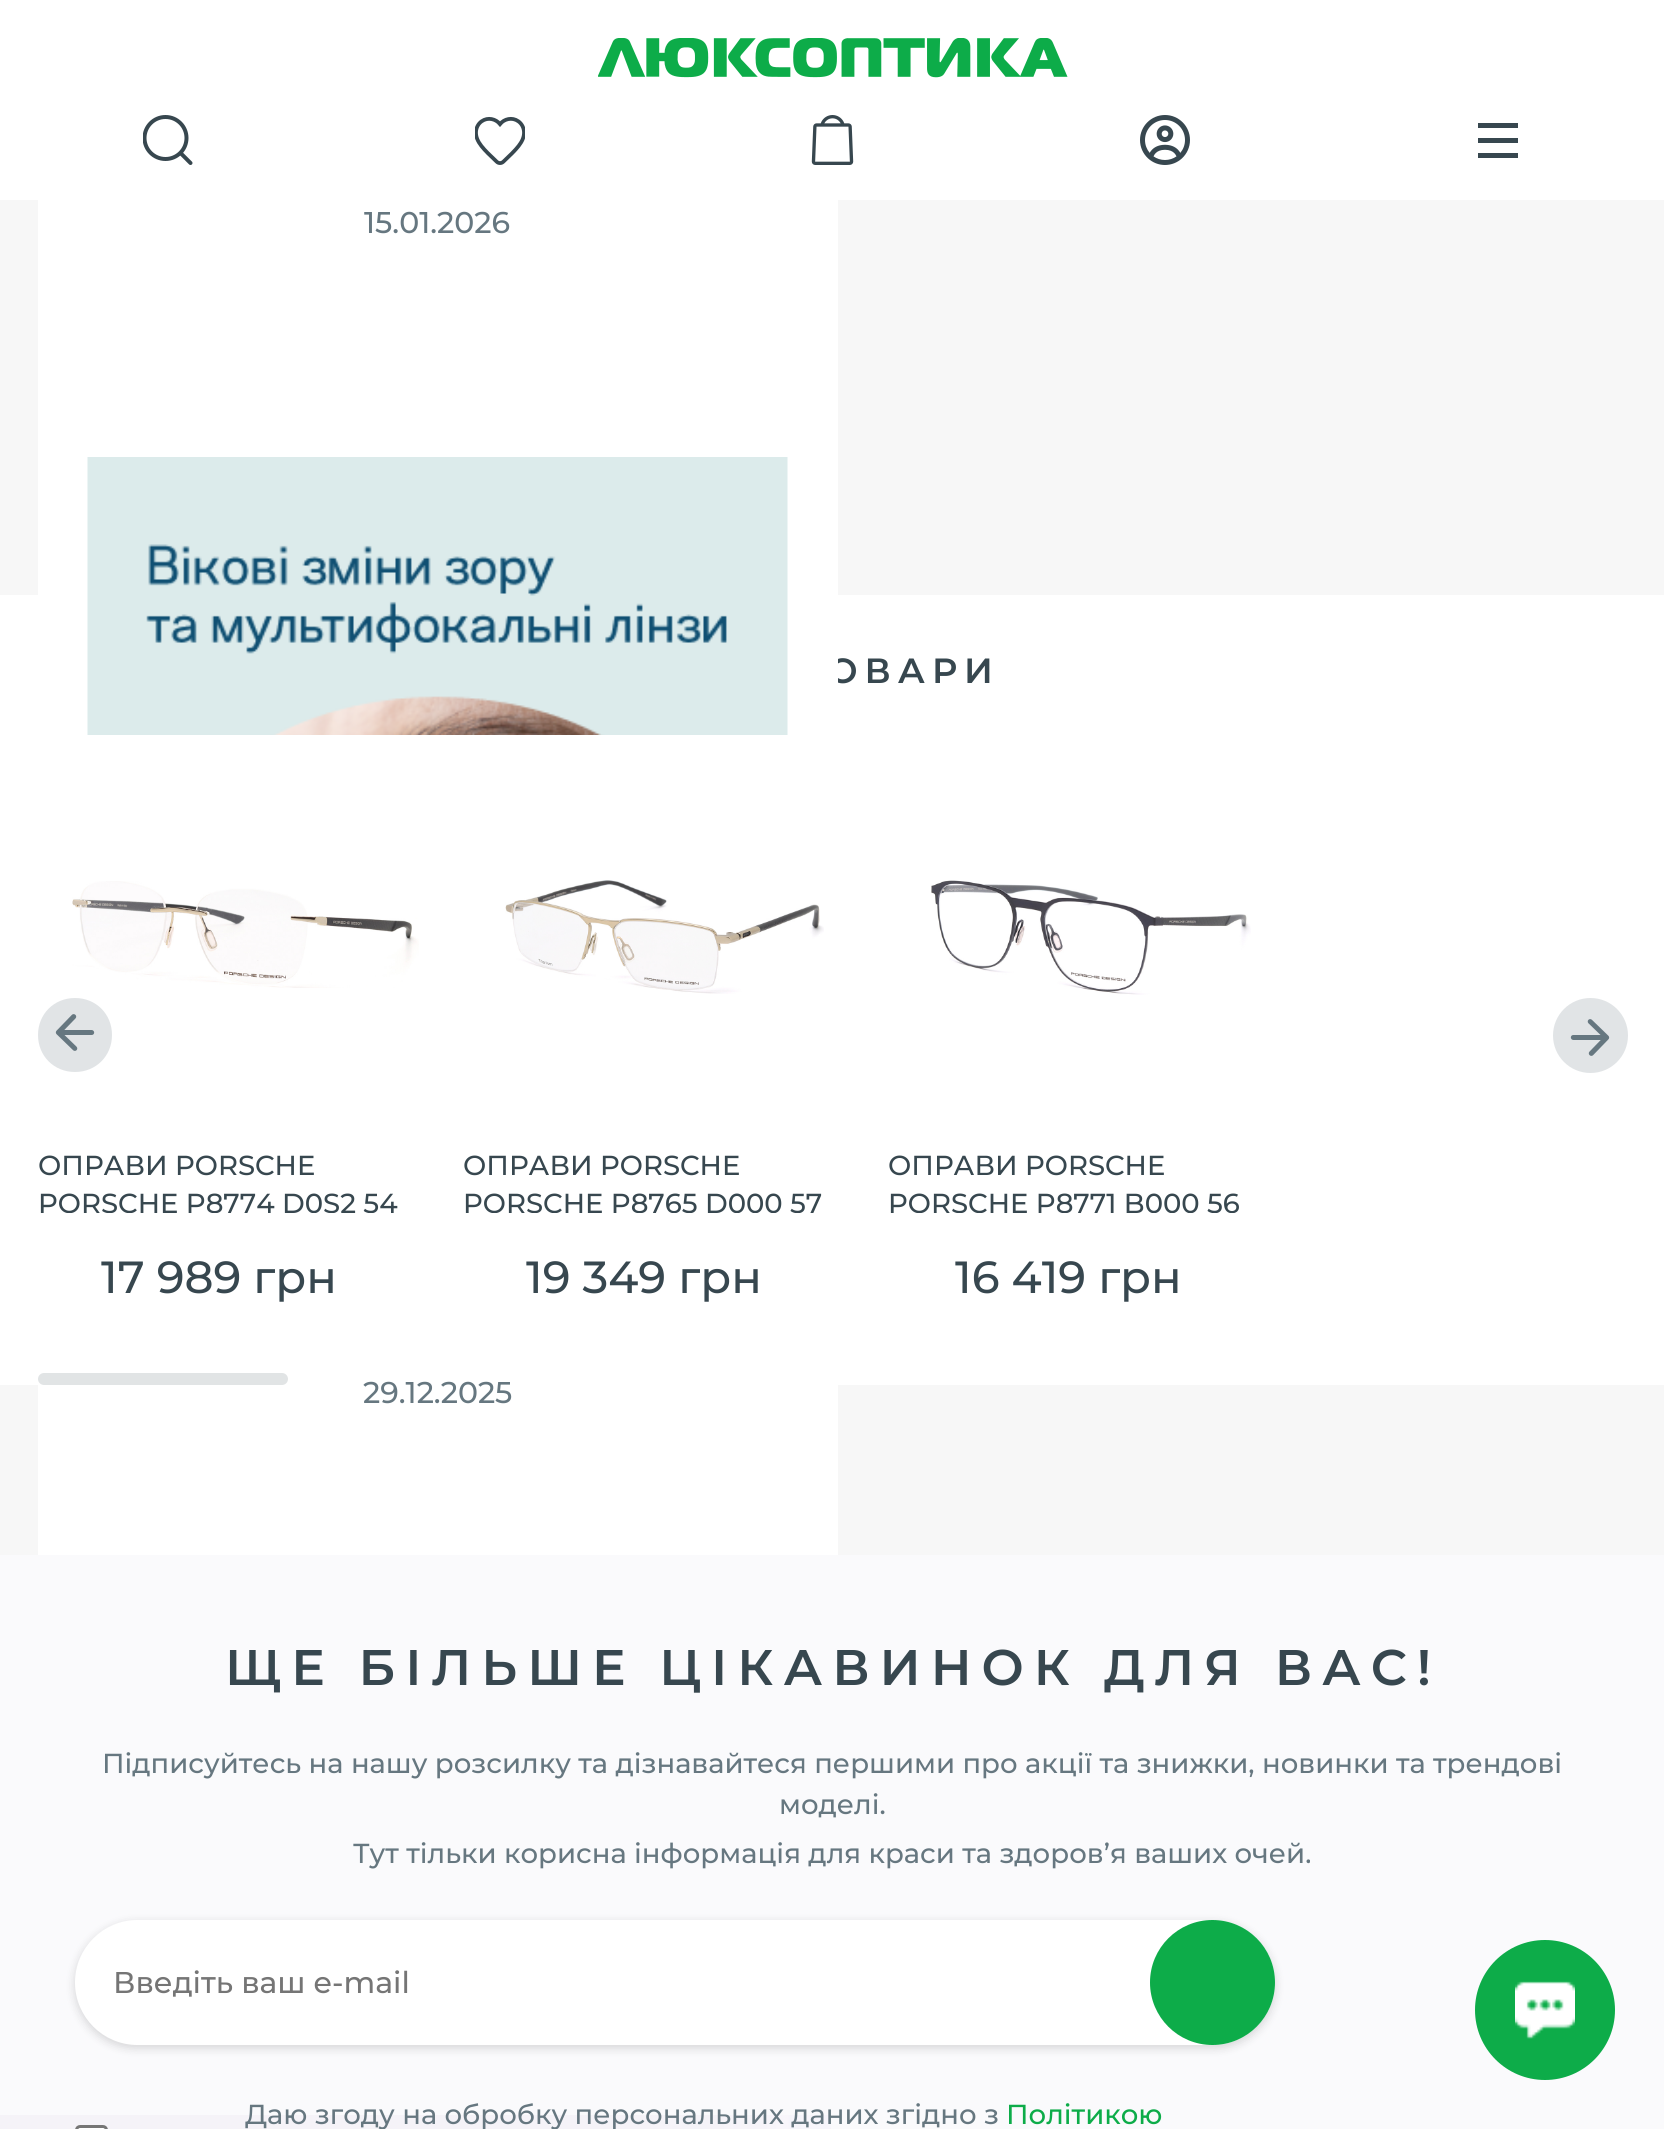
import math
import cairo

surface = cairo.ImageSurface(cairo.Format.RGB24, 1664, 2129)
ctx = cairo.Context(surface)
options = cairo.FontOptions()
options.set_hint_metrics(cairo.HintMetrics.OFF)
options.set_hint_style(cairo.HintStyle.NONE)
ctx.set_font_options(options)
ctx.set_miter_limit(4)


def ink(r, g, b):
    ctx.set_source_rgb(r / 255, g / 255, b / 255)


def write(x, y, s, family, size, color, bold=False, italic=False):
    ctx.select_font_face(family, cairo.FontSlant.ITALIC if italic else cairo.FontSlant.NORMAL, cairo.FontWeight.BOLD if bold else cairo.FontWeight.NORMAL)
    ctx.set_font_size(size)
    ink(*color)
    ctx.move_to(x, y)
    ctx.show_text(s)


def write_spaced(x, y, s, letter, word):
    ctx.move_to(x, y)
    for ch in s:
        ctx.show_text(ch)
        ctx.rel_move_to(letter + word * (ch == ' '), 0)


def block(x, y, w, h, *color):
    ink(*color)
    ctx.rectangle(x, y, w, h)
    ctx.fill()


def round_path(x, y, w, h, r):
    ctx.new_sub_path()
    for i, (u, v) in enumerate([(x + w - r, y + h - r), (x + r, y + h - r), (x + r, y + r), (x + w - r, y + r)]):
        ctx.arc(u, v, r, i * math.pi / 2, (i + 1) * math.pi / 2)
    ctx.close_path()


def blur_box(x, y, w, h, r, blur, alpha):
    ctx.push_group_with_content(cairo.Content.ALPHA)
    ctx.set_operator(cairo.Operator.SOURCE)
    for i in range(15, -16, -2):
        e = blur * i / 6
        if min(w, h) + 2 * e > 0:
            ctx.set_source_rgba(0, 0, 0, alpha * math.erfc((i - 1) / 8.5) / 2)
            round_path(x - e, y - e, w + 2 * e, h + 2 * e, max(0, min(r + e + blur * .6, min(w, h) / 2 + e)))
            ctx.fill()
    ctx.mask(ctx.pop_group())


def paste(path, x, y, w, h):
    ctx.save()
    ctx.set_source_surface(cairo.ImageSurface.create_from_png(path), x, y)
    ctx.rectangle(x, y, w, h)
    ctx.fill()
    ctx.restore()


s1 = dict(family="Montserrat Medium", size=30, color=(102, 119, 128))
s2 = dict(family="Montserrat Medium", size=27.5, color=(55, 71, 79))
s3 = dict(family="Montserrat Medium", size=45, color=(55, 71, 79))
s4 = dict(family="Montserrat Medium", size=27.5, color=(102, 119, 128))
s5 = dict(family="Montserrat Medium", size=30, color=(117, 117, 117))
s6 = dict(family="Montserrat Medium", size=27.5, color=(13, 172, 73))

ink(247, 247, 247)
ctx.paint()
block(0, 0, 1664, 200, 255, 255, 255)
paste("pic1.png", 598, 38, 470, 40)
ctx.save()
ctx.rectangle(143, 115, 50, 50)
ctx.clip()
ctx.arc(165.5, 138, 21, 0, 2 * math.pi)
ink(55, 71, 79)
ctx.set_line_width(4)
ctx.stroke()
ctx.restore()
ctx.new_path()
ctx.move_to(190.5, 163)
ctx.line_to(181, 153.5)
ink(55, 71, 79)
ctx.set_line_width(4)
ctx.set_line_cap(cairo.LineCap.ROUND)
ctx.stroke()
paste("pic2.png", 475, 116, 50, 49)
paste("pic3.png", 811, 115, 43, 50)
paste("pic4.png", 1140, 115, 50, 50)
block(1478, 123, 40, 5, 55, 71, 79)
block(1478, 138, 40, 5, 55, 71, 79)
block(1478, 153, 40, 5, 55, 71, 79)
block(0, 595, 1664, 790, 255, 255, 255)
ctx.select_font_face("Montserrat SemiBold")
ctx.set_font_size(35)
ink(55, 71, 79)
write_spaced(828, 683, "ОВАРИ", 7, 0)
block(38, 200, 800, 1355, 255, 255, 255)
write(364, 233, "15.01.2026", **s1)
paste("pic5.png", 87, 457, 701, 278)
write(363, 1403, "29.12.2025", **s1)
ink(225, 228, 230)
ctx.new_path()
ctx.move_to(75, 1072)
ctx.curve_to(54, 1072, 38, 1056, 38, 1035)
ctx.curve_to(38, 1014, 54, 998, 75, 998)
ctx.curve_to(96, 998, 112, 1014, 112, 1035)
ctx.curve_to(112, 1056, 96, 1072, 75, 1072)
ctx.close_path()
ctx.fill()
paste("pic6.png", 55, 1014, 40, 37)
ctx.arc(1590.5, 1035.5, 37.5, 0, 2 * math.pi)
ctx.fill()
paste("pic7.png", 1570, 1019, 40, 37)
paste("pic8.png", 72, 881, 347, 107)
write(38, 1175, "ОПРАВИ PORSCHE", **s2)
ctx.save()
ctx.rectangle(38, 1148, 400, 65)
ctx.clip()
write(38, 1213, "PORSCHE P8774 D0S2 54", **s2)
ctx.restore()
write(101, 1293, "17 989 грн", **s3)
paste("pic9.png", 505, 880, 319, 114)
write(463, 1175, "ОПРАВИ PORSCHE", **s2)
ctx.save()
ctx.rectangle(463, 1148, 400, 65)
ctx.clip()
write(463, 1213, "PORSCHE P8765 D000 57", **s2)
ctx.restore()
write(526, 1293, "19 349 грн", **s3)
paste("pic10.png", 931, 880, 320, 115)
write(888, 1175, "ОПРАВИ PORSCHE", **s2)
ctx.save()
ctx.rectangle(888, 1148, 400, 65)
ctx.clip()
write(888, 1213, "PORSCHE P8771 B000 56", **s2)
ctx.restore()
write(955, 1293, "16 419 грн", **s3)
ink(225, 228, 229)
round_path(38, 1373, 250, 12, 6)
ctx.fill()
block(0, 1555, 1664, 574, 250, 250, 252)
paste("pic11.png", 0, 2115, 831, 14)
ctx.select_font_face("Montserrat SemiBold")
ctx.set_font_size(50)
ink(55, 71, 79)
write_spaced(225, 1685, "ЩЕ БІЛЬШЕ ЦІКАВИНОК ДЛЯ ВАС!", 10, 0)
write(102, 1773, "Підписуйтесь на нашу розсилку та дізнавайтеся першими про акції та знижки, новинки та трендові", **s4)
write(779, 1814, "моделі.", **s4)
write(353, 1863, "Тут тільки корисна інформація для краси та здоров’я ваших очей.", **s4)
ink(0, 0, 0)
blur_box(75, 1923, 1200, 125, 62.5, 5, 0.15)
ink(255, 255, 255)
round_path(75, 1920, 1200, 125, 62.5)
ctx.fill()
write(113, 1993, "Введіть ваш e-mail", **s5)
ink(13, 172, 73)
ctx.new_path()
ctx.arc(1212.5, 1982.5, 62.5, 0, 2 * math.pi)
ctx.fill()
write(245, 2124, "Даю згоду на обробку персональних даних згідно з", **s4)
write(1006, 2124, "Політикою", **s6)
ink(255, 255, 255)
round_path(76.5, 2126.5, 30, 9, 3.5)
ctx.fill_preserve()
ink(118, 118, 118)
ctx.set_line_width(3)
ctx.set_line_cap(cairo.LineCap.BUTT)
ctx.stroke()
ink(13, 172, 73)
ctx.arc(1545, 2010, 70, 0, 2 * math.pi)
ctx.fill()
paste("pic12.png", 1515, 1981, 60, 58)
surface.write_to_png("screenshot.png")
